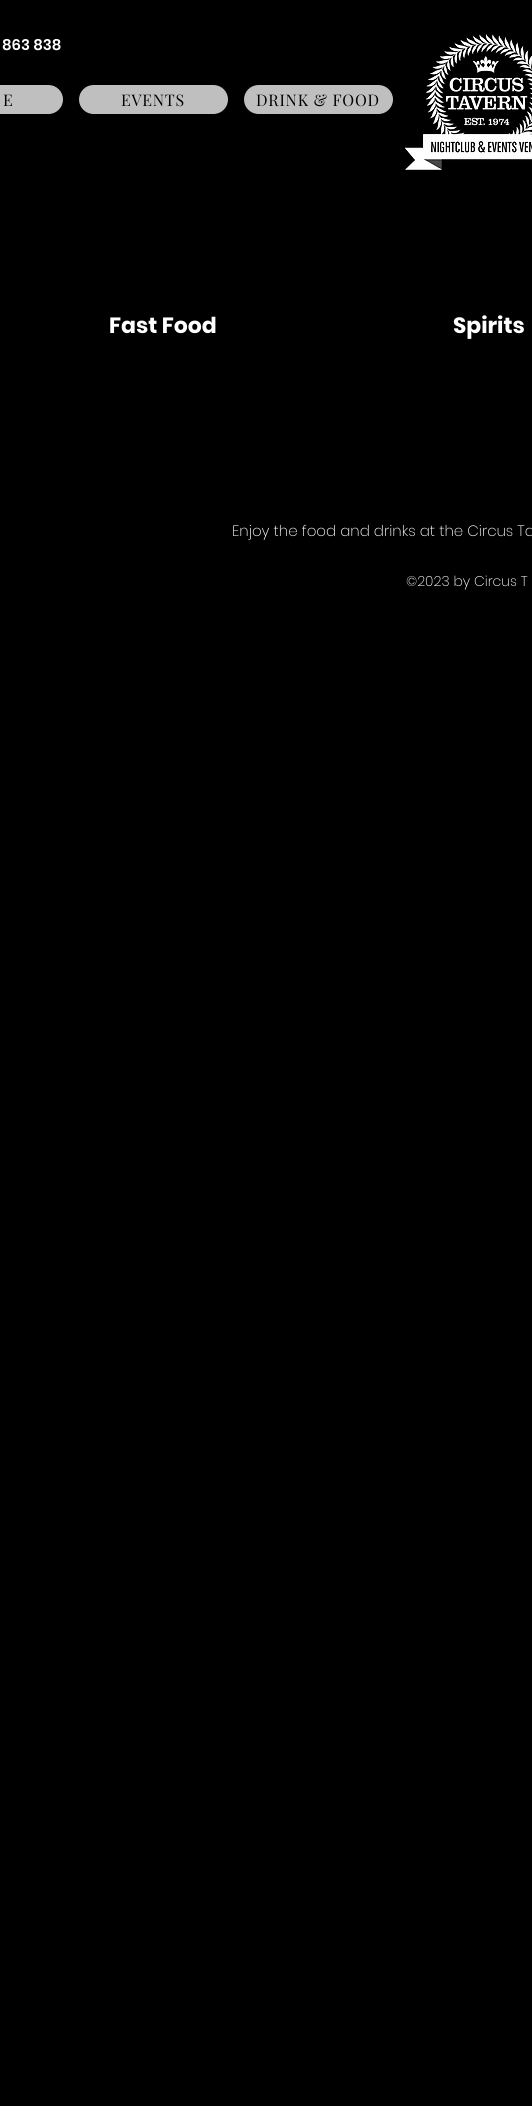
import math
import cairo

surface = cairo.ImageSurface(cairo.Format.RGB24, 532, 2106)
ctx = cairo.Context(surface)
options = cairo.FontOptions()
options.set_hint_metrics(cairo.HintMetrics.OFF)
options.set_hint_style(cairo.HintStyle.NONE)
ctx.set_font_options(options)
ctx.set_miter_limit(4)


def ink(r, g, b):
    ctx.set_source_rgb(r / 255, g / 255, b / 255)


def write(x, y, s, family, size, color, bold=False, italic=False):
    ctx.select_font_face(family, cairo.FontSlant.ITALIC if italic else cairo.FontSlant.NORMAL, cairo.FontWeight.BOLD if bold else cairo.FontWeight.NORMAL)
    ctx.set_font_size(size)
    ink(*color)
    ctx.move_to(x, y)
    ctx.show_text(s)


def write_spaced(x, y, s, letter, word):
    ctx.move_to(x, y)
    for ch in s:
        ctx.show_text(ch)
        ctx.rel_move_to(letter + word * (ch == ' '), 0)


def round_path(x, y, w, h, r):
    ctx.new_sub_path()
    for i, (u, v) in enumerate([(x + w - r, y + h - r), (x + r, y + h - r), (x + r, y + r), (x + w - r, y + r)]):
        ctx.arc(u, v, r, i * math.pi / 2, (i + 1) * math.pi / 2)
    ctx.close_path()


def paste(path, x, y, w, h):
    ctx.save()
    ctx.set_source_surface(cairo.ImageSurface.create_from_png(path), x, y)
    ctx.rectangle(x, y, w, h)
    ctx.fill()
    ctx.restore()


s1 = dict(family="Poppins SemiBold", size=15, color=(255, 255, 255))
s2 = dict(family="Poppins", size=22, color=(255, 255, 255), bold=True)
s3 = dict(family="Poppins ExtraLight", size=15, color=(255, 255, 255))
s4 = dict(family="Poppins ExtraLight", size=14, color=(255, 255, 255))

ink(0, 0, 0)
ctx.paint()
write(2, 50, "863 838", **s1)
ink(191, 191, 191)
ctx.new_path()
ctx.move_to(0, 85)
ctx.line_to(48.5, 85)
ctx.curve_to(56.5, 85, 63, 91.5, 63, 99.5)
ctx.curve_to(63, 107.5, 56.5, 114, 48.5, 114)
ctx.line_to(0, 114)
ctx.close_path()
ctx.fill()
ctx.select_font_face("Playfair Display")
ctx.set_font_size(16)
ink(0, 0, 0)
write_spaced(3, 106, "E", 0.75, 0)
ink(191, 191, 191)
round_path(79, 85, 149, 29, 14.5)
ctx.fill()
ink(0, 0, 0)
write_spaced(121, 106, "EVENTS", 0.75, 0)
ink(191, 191, 191)
round_path(244, 85, 149, 29, 14.5)
ctx.fill()
ink(0, 0, 0)
write_spaced(256, 106, "DRINK & FOOD", 0.75, 0)
paste("pic1.png", 405, 34, 127, 136)
write(109, 333, "Fast Food", **s2)
write(453, 333, "Spirits", **s2)
write(232, 536, "Enjoy the food and drinks at the Circus Ta", **s3)
write(406, 586, "©2023 by Circus T", **s4)
surface.write_to_png("screenshot.png")
